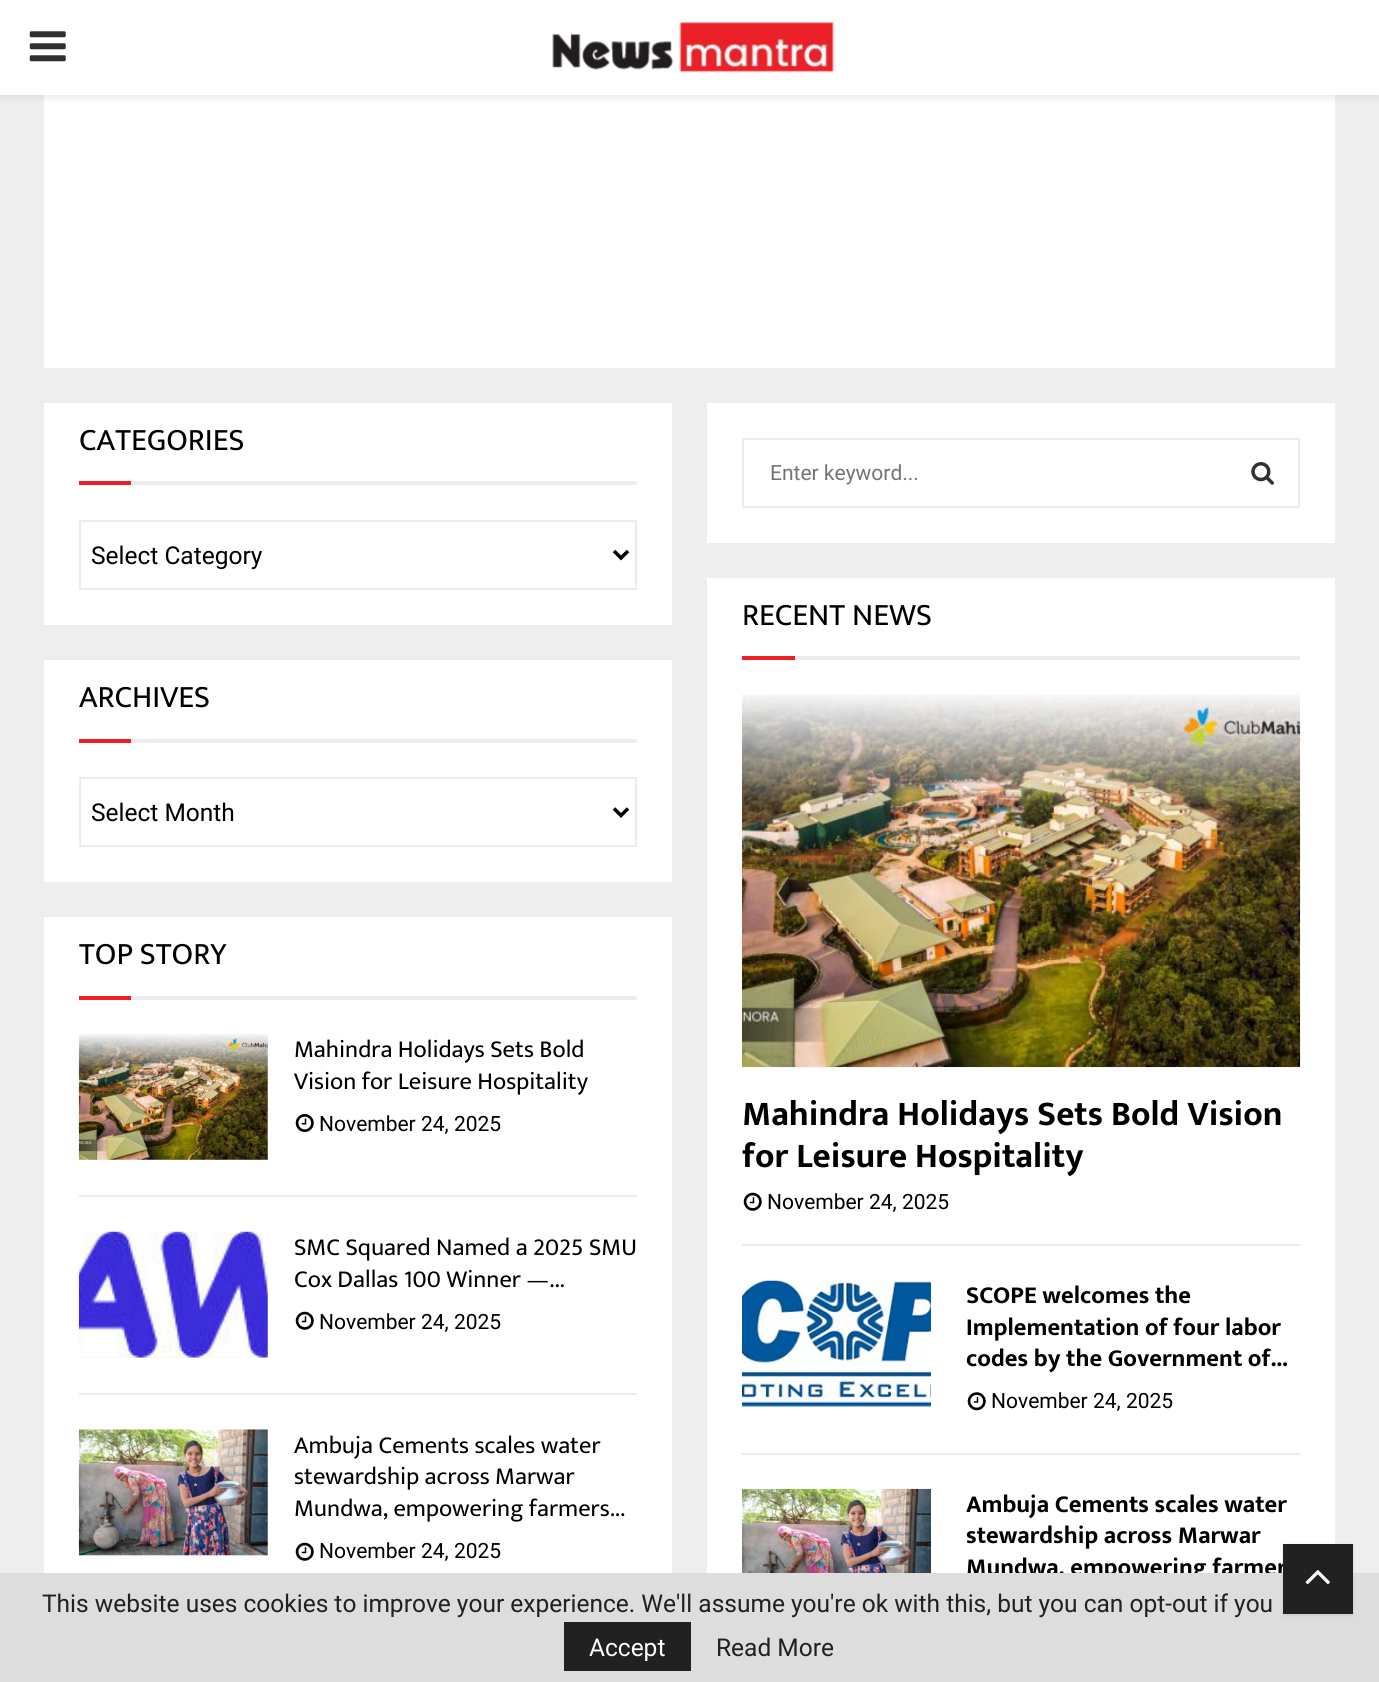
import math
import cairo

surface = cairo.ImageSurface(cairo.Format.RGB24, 1379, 1682)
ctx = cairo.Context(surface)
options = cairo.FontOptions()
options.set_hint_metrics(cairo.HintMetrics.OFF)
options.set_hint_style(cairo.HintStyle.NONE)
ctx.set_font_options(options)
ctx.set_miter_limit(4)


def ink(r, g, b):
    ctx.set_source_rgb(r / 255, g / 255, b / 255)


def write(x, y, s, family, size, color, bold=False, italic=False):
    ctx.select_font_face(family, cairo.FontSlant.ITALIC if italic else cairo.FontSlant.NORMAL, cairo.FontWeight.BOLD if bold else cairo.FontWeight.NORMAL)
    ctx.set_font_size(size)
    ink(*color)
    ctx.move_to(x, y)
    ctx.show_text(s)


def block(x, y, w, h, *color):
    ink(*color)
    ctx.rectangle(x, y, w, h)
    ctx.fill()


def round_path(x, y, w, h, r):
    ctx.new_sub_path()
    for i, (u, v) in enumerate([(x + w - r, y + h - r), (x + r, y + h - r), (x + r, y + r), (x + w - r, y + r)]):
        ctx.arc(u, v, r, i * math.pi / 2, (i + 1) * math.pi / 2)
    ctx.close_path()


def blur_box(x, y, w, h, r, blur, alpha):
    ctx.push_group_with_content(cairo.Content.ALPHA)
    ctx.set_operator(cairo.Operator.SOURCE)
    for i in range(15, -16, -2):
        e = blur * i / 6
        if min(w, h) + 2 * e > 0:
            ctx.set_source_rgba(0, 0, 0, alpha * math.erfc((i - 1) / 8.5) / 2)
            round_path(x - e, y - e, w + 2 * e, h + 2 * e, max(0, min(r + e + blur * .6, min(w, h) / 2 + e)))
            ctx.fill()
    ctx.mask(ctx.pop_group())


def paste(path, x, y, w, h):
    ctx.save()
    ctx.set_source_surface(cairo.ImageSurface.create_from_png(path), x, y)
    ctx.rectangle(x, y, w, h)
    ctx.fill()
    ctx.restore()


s1 = dict(family="Mukta Vaani", size=31.5, color=(0, 0, 0))
s2 = dict(family="Roboto", size=24.5, color=(0, 0, 0))
s3 = dict(family="Mukta Vaani", size=24.5, color=(0, 0, 0))
s4 = dict(family="Roboto", size=21, color=(0, 0, 0))
s5 = dict(family="Roboto", size=21, color=(117, 117, 117))
s6 = dict(family="Mukta Vaani", size=35, color=(0, 0, 0), bold=True)
s7 = dict(family="Mukta Vaani", size=24.5, color=(0, 0, 0), bold=True)
s8 = dict(family="Roboto", size=24.5, color=(33, 33, 33))
s9 = dict(family="Roboto", size=24.5, color=(255, 255, 255))

ink(238, 238, 238)
ctx.paint()
block(44, 95, 1291, 273, 255, 255, 255)
ink(190, 190, 190)
blur_box(0, 2, 1379, 94, 0, 4.5, 0.46)
block(0, 0, 1379, 95, 255, 255, 255)
paste("pic1.png", 29, 31, 37, 31)
paste("pic2.png", 552, 22, 283, 51)
block(44, 403, 628, 222, 255, 255, 255)
block(131, 481, 506, 4, 236, 236, 236)
write(79, 450, "CATEGORIES", **s1)
block(79, 481, 52, 4, 236, 30, 38)
ctx.rectangle(80, 521, 556, 68)
ink(236, 236, 236)
ctx.stroke()
ctx.new_path()
ctx.move_to(614, 551)
ctx.line_to(621, 558)
ctx.line_to(628, 551)
ink(0, 0, 0)
ctx.set_line_width(3.5)
ctx.stroke()
write(91, 564, "Select Category", **s2)
block(44, 660, 628, 222, 255, 255, 255)
block(131, 739, 506, 4, 236, 236, 236)
write(79, 707, "ARCHIVES", **s1)
block(79, 739, 52, 4, 236, 30, 38)
ctx.rectangle(80, 778, 556, 68)
ink(236, 236, 236)
ctx.set_line_width(2)
ctx.stroke()
ctx.new_path()
ctx.move_to(614, 808.5)
ctx.line_to(621, 815.5)
ctx.line_to(628, 808.5)
ink(0, 0, 0)
ctx.set_line_width(3.5)
ctx.stroke()
write(91, 821, "Select Month", **s2)
block(44, 917, 628, 656, 255, 255, 255)
block(131, 996, 506, 4, 236, 236, 236)
write(79, 964, "TOP STORY", **s1)
block(79, 996, 52, 4, 236, 30, 38)
block(79, 1195, 558, 2, 236, 236, 236)
block(79, 1034, 189, 126, 245, 245, 245)
paste("pic3.png", 78, 1034, 190, 126)
write(294, 1057, "Mahindra Holidays Sets Bold", **s3)
write(294, 1089, "Vision for Leisure Hospitality", **s3)
paste("pic4.png", 295, 1114, 19, 18)
write(319, 1131, "November 24, 2025", **s4)
block(79, 1393, 558, 2, 236, 236, 236)
block(79, 1232, 189, 126, 245, 245, 245)
paste("pic5.png", 78, 1231, 190, 127)
write(294, 1255, "SMC Squared Named a 2025 SMU", **s3)
write(294, 1287, "Cox Dallas 100 Winner —...", **s3)
paste("pic6.png", 295, 1311, 19, 19)
write(319, 1329, "November 24, 2025", **s4)
block(79, 1430, 189, 126, 245, 245, 245)
paste("pic7.png", 78, 1429, 190, 127)
write(294, 1453, "Ambuja Cements scales water", **s3)
write(294, 1484, "stewardship across Marwar", **s3)
write(294, 1516, "Mundwa, empowering farmers...", **s3)
paste("pic6.png", 295, 1542, 19, 19)
write(319, 1558, "November 24, 2025", **s4)
block(707, 403, 628, 140, 255, 255, 255)
ctx.rectangle(743, 439, 556, 68)
ink(236, 236, 236)
ctx.set_line_width(2)
ctx.stroke()
write(770, 480, "Enter keyword...", **s5)
paste("pic8.png", 1251, 462, 23, 23)
block(707, 578, 628, 995, 255, 255, 255)
block(795, 656, 505, 4, 236, 236, 236)
write(742, 625, "RECENT NEWS", **s1)
block(742, 656, 53, 4, 236, 30, 38)
block(742, 1244, 558, 2, 236, 236, 236)
block(742, 1067, 558, 1, 245, 245, 245)
paste("pic9.png", 742, 694, 559, 373)
write(742, 1125, "Mahindra Holidays Sets Bold Vision", **s6)
write(742, 1167, "for Leisure Hospitality", **s6)
paste("pic6.png", 743, 1192, 19, 19)
write(767, 1209, "November 24, 2025", **s4)
block(742, 1453, 558, 2, 236, 236, 236)
block(742, 1406, 189, 1, 245, 245, 245)
paste("pic10.png", 742, 1280, 189, 127)
write(966, 1303, "SCOPE welcomes the", **s7)
write(966, 1335, "Implementation of four labor", **s7)
write(966, 1366, "codes by the Government of...", **s7)
paste("pic11.png", 967, 1392, 19, 19)
write(991, 1408, "November 24, 2025", **s4)
paste("pic12.png", 742, 1488, 189, 85)
write(966, 1512, "Ambuja Cements scales water", **s7)
write(966, 1543, "stewardship across Marwar", **s7)
write(966, 1575, "Mundwa, empowering farmer", **s7)
block(0, 1573, 1379, 109, 221, 221, 221)
ink(0, 0, 0)
blur_box(1283, 1545, 70, 70, 0, 2, 0.1)
block(1283, 1544, 70, 70, 33, 33, 33)
paste("pic13.png", 1305, 1570, 25, 15)
write(42, 1612, "This website uses cookies to improve your experience. We'll assume you're ok with this, but you can opt-out if you", **s8)
block(564, 1622, 127, 49, 33, 33, 33)
write(589, 1656, "Accept", **s9)
write(716, 1656, "Read More", **s8)
surface.write_to_png("screenshot.png")
